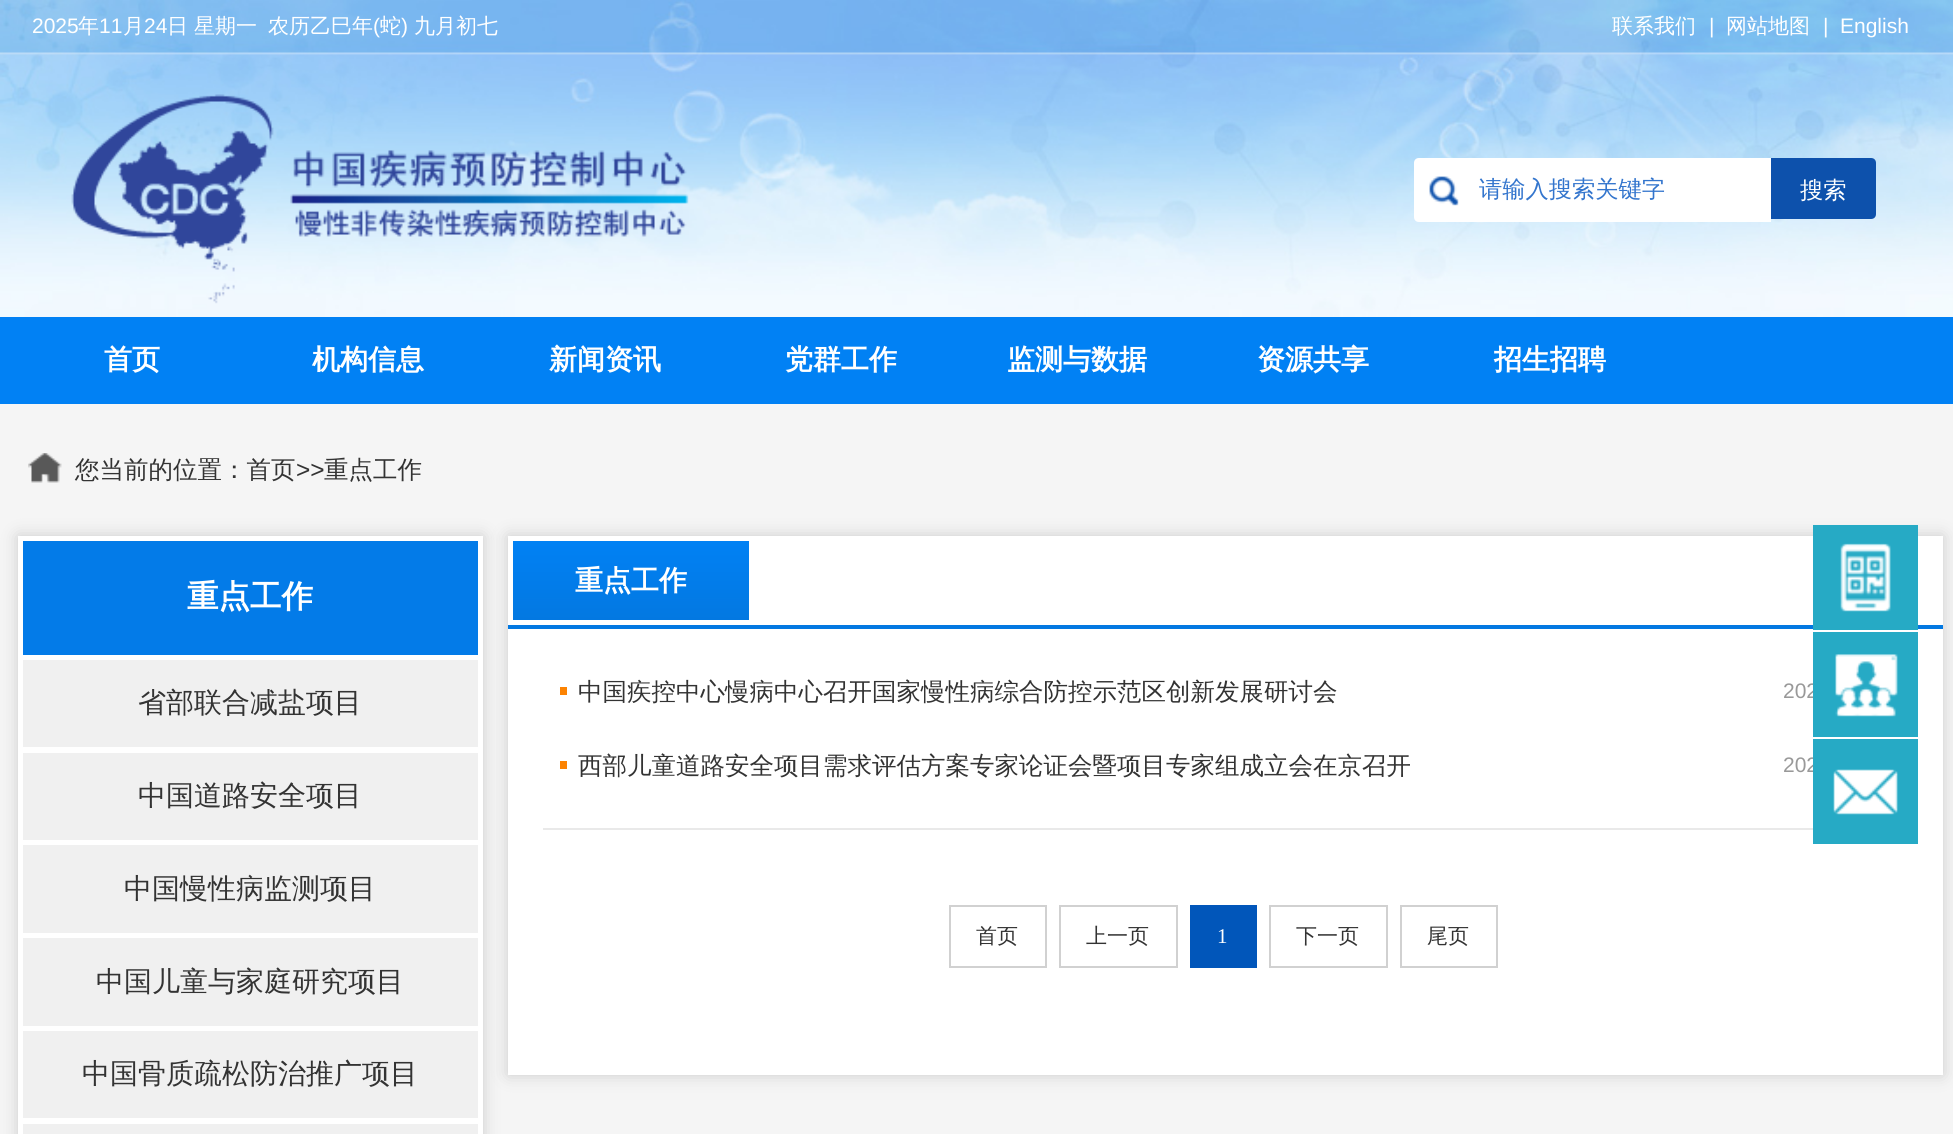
import math
import cairo

surface = cairo.ImageSurface(cairo.Format.RGB24, 1953, 1134)
ctx = cairo.Context(surface)
options = cairo.FontOptions()
options.set_hint_metrics(cairo.HintMetrics.OFF)
options.set_hint_style(cairo.HintStyle.NONE)
ctx.set_font_options(options)
ctx.set_miter_limit(4)


def ink(r, g, b):
    ctx.set_source_rgb(r / 255, g / 255, b / 255)


def write(x, y, s, family, size, color, bold=False, italic=False):
    ctx.select_font_face(family, cairo.FontSlant.ITALIC if italic else cairo.FontSlant.NORMAL, cairo.FontWeight.BOLD if bold else cairo.FontWeight.NORMAL)
    ctx.set_font_size(size)
    ink(*color)
    ctx.move_to(x, y)
    ctx.show_text(s)


def block(x, y, w, h, *color):
    ink(*color)
    ctx.rectangle(x, y, w, h)
    ctx.fill()


def round_path(x, y, w, h, r):
    ctx.new_sub_path()
    for i, (u, v) in enumerate([(x + w - r, y + h - r), (x + r, y + h - r), (x + r, y + r), (x + w - r, y + r)]):
        ctx.arc(u, v, r, i * math.pi / 2, (i + 1) * math.pi / 2)
    ctx.close_path()


def blur_box(x, y, w, h, r, blur, alpha):
    ctx.push_group_with_content(cairo.Content.ALPHA)
    ctx.set_operator(cairo.Operator.SOURCE)
    for i in range(15, -16, -2):
        e = blur * i / 6
        if min(w, h) + 2 * e > 0:
            ctx.set_source_rgba(0, 0, 0, alpha * math.erfc((i - 1) / 8.5) / 2)
            round_path(x - e, y - e, w + 2 * e, h + 2 * e, max(0, min(r + e + blur * .6, min(w, h) / 2 + e)))
            ctx.fill()
    ctx.mask(ctx.pop_group())


def paste(path, x, y, w, h):
    ctx.save()
    ctx.set_source_surface(cairo.ImageSurface.create_from_png(path), x, y)
    ctx.rectangle(x, y, w, h)
    ctx.fill()
    ctx.restore()


s1 = dict(family="Liberation Sans", size=21, color=(255, 255, 255))
s2 = dict(family="WenQuanYi Zen Hei Medium", size=21, color=(255, 255, 255))
s3 = dict(family="WenQuanYi Zen Hei Medium", size=23.25, color=(51, 117, 205))
s4 = dict(family="WenQuanYi Zen Hei Medium", size=23.25, color=(255, 255, 255))
s5 = dict(family="WenQuanYi Zen Hei", size=28, color=(255, 255, 255), bold=True)
s6 = dict(family="WenQuanYi Zen Hei Medium", size=24.5, color=(51, 51, 51))
s7 = dict(family="Liberation Sans", size=24.5, color=(51, 51, 51))
s8 = dict(family="WenQuanYi Zen Hei", size=31.5, color=(255, 255, 255), bold=True)
s9 = dict(family="WenQuanYi Zen Hei Medium", size=28, color=(51, 51, 51))
s10 = dict(family="Liberation Sans", size=21, color=(153, 153, 153))
s11 = dict(family="WenQuanYi Zen Hei Medium", size=21, color=(51, 51, 51))
s12 = dict(family="Liberation Serif", size=21, color=(255, 255, 255))

ink(245, 245, 245)
ctx.paint()
paste("pic1.png", 0, 0, 1953, 317)
write(32, 33, "2025", **s1)
write(78, 33, "年", **s2)
write(99, 33, "11", **s1)
write(123, 33, "月", **s2)
write(144, 33, "24", **s1)
write(167, 33, "日", **s2)
write(194, 33, "星期一", **s2)
write(268, 33, "农历乙巳年", **s2)
write(373, 33, "(", **s1)
write(380, 33, "蛇", **s2)
write(401, 33, ")", **s1)
write(414, 33, "九月初七", **s2)
write(1612, 33, "联系我们", **s2)
write(1709, 33, "|", **s1)
write(1726, 33, "网站地图", **s2)
write(1823, 33, "|", **s1)
write(1840, 33, "English", **s1)
paste("pic2.png", 71, 94, 618, 210)
ctx.new_path()
ctx.move_to(1419, 158)
ctx.line_to(1771, 158)
ctx.line_to(1771, 222)
ctx.line_to(1419, 222)
ctx.curve_to(1416, 222, 1414, 220, 1414, 217)
ctx.line_to(1414, 163)
ctx.curve_to(1414, 160, 1416, 158, 1419, 158)
ctx.close_path()
ctx.fill()
paste("pic3.png", 1429, 176, 30, 30)
write(1479, 197, "请输入搜索关键字", **s3)
ink(13, 81, 172)
ctx.new_path()
ctx.move_to(1771, 158)
ctx.line_to(1871, 158)
ctx.curve_to(1874, 158, 1876, 160, 1876, 163)
ctx.line_to(1876, 214)
ctx.curve_to(1876, 217, 1874, 219, 1871, 219)
ctx.line_to(1771, 219)
ctx.close_path()
ctx.fill()
write(1800, 198, "搜索", **s4)
block(0, 317, 1953, 87, 1, 129, 244)
write(104, 369, "首页", **s5)
write(312, 369, "机构信息", **s5)
write(549, 369, "新闻资讯", **s5)
write(785, 369, "党群工作", **s5)
write(1007, 369, "监测与数据", **s5)
write(1257, 369, "资源共享", **s5)
write(1494, 369, "招生招聘", **s5)
paste("pic4.png", 28, 453, 34, 30)
write(75, 478, "您当前的位置：首页", **s6)
write(296, 478, ">>", **s7)
write(324, 478, "重点工作", **s6)
ink(204, 204, 204)
blur_box(18, 536, 465, 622, 0, 8, 1)
block(18, 536, 465, 598, 255, 255, 255)
block(23, 541, 455, 114, 3, 123, 232)
write(187, 607, "重点工作", **s8)
block(23, 660, 455, 87, 240, 240, 240)
write(138, 712, "省部联合减盐项目", **s9)
block(23, 753, 455, 87, 240, 240, 240)
write(138, 805, "中国道路安全项目", **s9)
block(23, 845, 455, 88, 240, 240, 240)
write(124, 898, "中国慢性病监测项目", **s9)
block(23, 938, 455, 88, 240, 240, 240)
write(96, 991, "中国儿童与家庭研究项目", **s9)
block(23, 1031, 455, 87, 240, 240, 240)
write(82, 1083, "中国骨质疏松防治推广项目", **s9)
block(23, 1124, 455, 10, 240, 240, 240)
ink(204, 204, 204)
blur_box(508, 536, 1435, 539, 0, 8, 1)
block(508, 536, 1435, 539, 255, 255, 255)
block(508, 625, 1435, 4, 3, 120, 225)
gradient = cairo.LinearGradient(631, 541, 631, 620)
gradient.add_color_stop_rgba(0, 0.004, 0.506, 0.957, 1)
gradient.add_color_stop_rgba(1, 0.012, 0.471, 0.882, 1)
ctx.set_source(gradient)
ctx.rectangle(513, 541, 236, 79)
ctx.fill()
write(575, 590, "重点工作", **s5)
block(543, 828, 1270, 2, 233, 233, 233)
block(560, 687, 7, 8, 252, 131, 2)
write(578, 700, "中国疾控中心慢病中心召开国家慢性病综合防控示范区创新发展研讨会", **s6)
write(1783, 698, "202", **s10)
block(560, 761, 7, 8, 252, 131, 2)
write(578, 774, "西部儿童道路安全项目需求评估方案专家论证会暨项目专家组成立会在京召开", **s6)
write(1783, 772, "202", **s10)
ctx.rectangle(950, 906, 96, 61)
ink(209, 209, 209)
ctx.stroke()
write(976, 943, "首页", **s11)
ctx.rectangle(1060, 906, 117, 61)
ink(209, 209, 209)
ctx.stroke()
write(1086, 943, "上一页", **s11)
block(1190, 905, 67, 63, 1, 86, 186)
write(1217, 943, "1", **s12)
ctx.rectangle(1270, 906, 117, 61)
ink(209, 209, 209)
ctx.stroke()
write(1296, 943, "下一页", **s11)
ctx.rectangle(1401, 906, 96, 61)
ink(209, 209, 209)
ctx.stroke()
write(1427, 943, "尾页", **s11)
block(1813, 525, 105, 105, 38, 170, 197)
paste("pic5.png", 1840, 543, 51, 69)
block(1813, 632, 105, 105, 38, 170, 197)
paste("pic6.png", 1835, 654, 63, 63)
block(1813, 739, 105, 105, 38, 170, 197)
paste("pic7.png", 1833, 769, 65, 46)
surface.write_to_png("screenshot.png")
